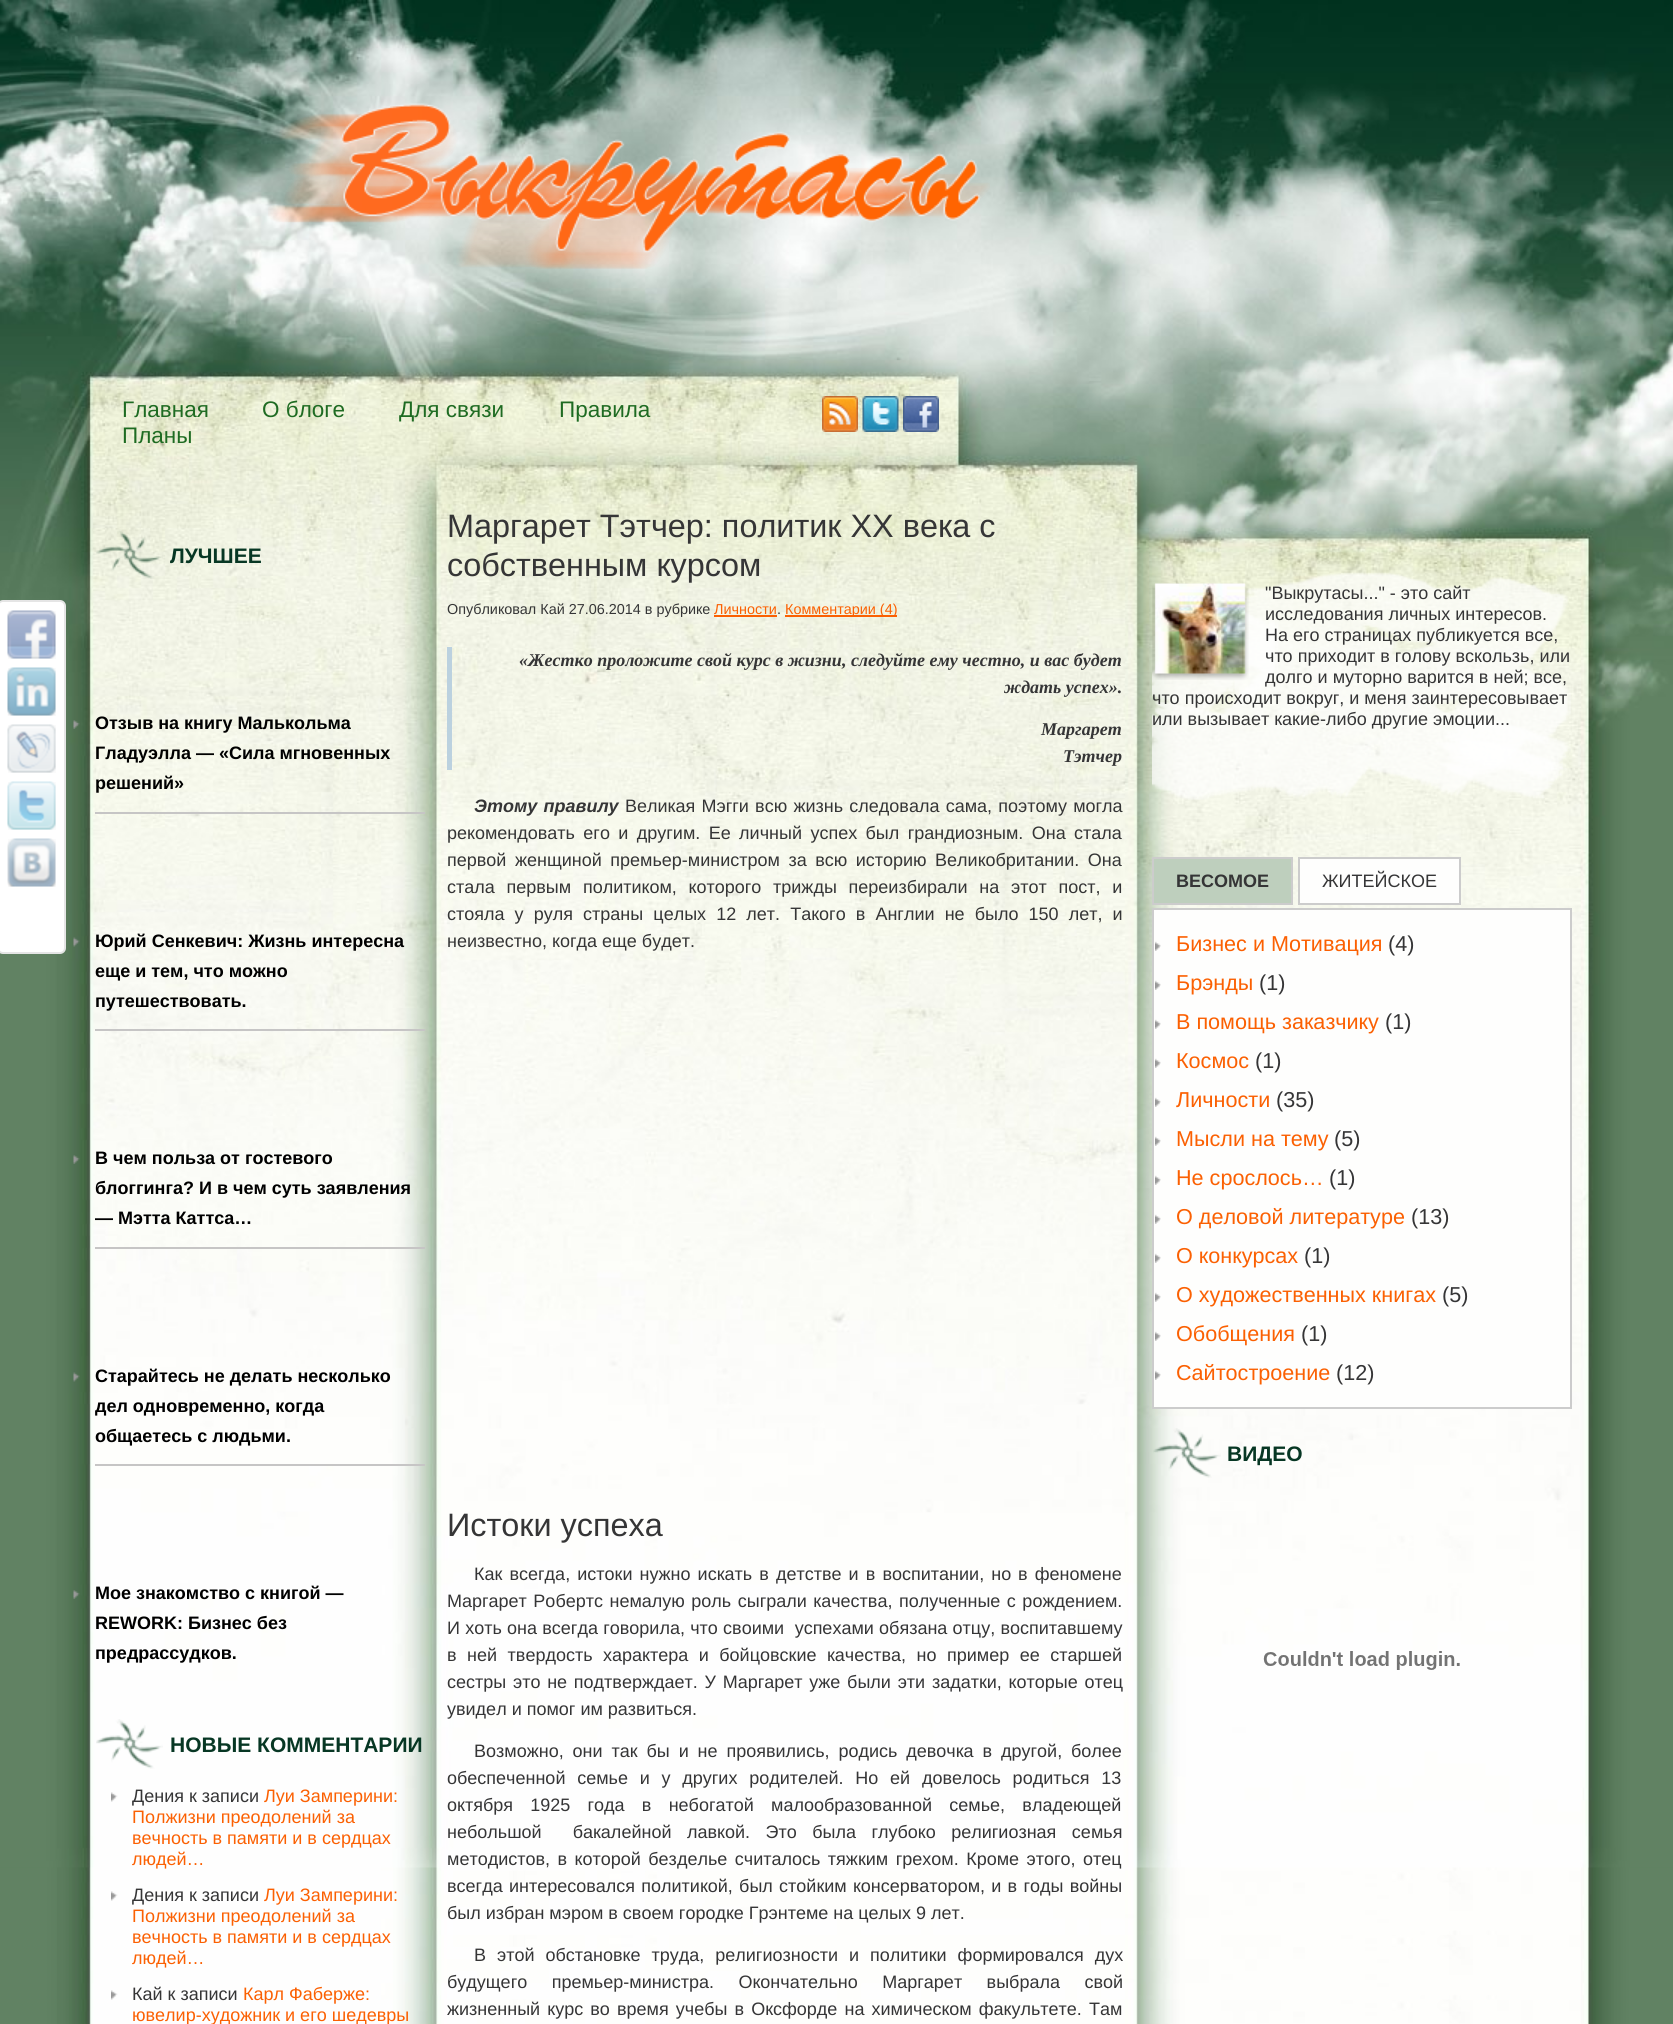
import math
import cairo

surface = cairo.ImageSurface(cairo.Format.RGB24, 1673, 2024)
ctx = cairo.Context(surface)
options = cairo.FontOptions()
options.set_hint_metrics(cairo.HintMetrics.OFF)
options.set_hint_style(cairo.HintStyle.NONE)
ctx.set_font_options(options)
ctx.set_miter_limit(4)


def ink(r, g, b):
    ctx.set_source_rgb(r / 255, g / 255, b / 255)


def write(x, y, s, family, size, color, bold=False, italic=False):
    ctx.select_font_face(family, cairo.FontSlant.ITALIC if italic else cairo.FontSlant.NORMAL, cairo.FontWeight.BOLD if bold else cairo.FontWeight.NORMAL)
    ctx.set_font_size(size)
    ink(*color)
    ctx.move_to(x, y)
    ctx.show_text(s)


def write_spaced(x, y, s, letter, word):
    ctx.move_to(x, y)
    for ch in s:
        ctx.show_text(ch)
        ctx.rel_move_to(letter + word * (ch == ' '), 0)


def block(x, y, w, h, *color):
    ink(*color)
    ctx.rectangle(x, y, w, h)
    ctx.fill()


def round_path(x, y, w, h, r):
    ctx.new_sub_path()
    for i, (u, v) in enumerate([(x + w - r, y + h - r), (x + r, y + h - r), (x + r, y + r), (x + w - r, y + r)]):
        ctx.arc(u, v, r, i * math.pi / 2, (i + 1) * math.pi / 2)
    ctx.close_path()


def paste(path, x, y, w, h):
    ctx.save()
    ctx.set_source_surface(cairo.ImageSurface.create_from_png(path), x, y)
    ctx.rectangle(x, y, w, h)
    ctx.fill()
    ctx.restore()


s1 = dict(family="Liberation Sans", size=22.5, color=(30, 107, 34))
s2 = dict(family="Liberation Sans", size=21, color=(7, 55, 36), bold=True)
s3 = dict(family="Liberation Sans", size=18, color=(0, 0, 0), bold=True)
s4 = dict(family="Liberation Sans", size=18, color=(53, 53, 54))
s5 = dict(family="Liberation Sans", size=18, color=(251, 96, 2))
s6 = dict(family="Liberation Sans", size=32.4, color=(53, 53, 54))
s7 = dict(family="Liberation Sans", size=14.4, color=(53, 53, 54))
s8 = dict(family="Liberation Sans", size=14.4, color=(251, 96, 2))
s9 = dict(family="Liberation Serif", size=18, color=(53, 53, 54), bold=True, italic=True)
s10 = dict(family="Liberation Sans", size=18, color=(53, 53, 54), bold=True)
s11 = dict(family="Liberation Sans", size=21.6, color=(251, 96, 2))
s12 = dict(family="Liberation Sans", size=21.6, color=(53, 53, 54))

ink(255, 255, 255)
ctx.paint()
paste("pic1.png", 0, 1867, 1673, 157)
paste("pic2.png", 0, 0, 1673, 1868)
paste("pic3.png", 268, 103, 722, 166)
write(122, 417, "Главная", **s1)
write(262, 417, "О блоге", **s1)
write(399, 417, "Для связи", **s1)
write(559, 417, "Правила", **s1)
write(122, 443, "Планы", **s1)
paste("pic4.png", 822, 396, 36, 36)
paste("pic5.png", 862, 396, 37, 36)
paste("pic6.png", 903, 396, 36, 36)
paste("pic7.png", 96, 529, 67, 50)
write(170, 563, "ЛУЧШЕЕ", **s2)
block(95, 812, 330, 2, 198, 197, 197)
paste("pic8.png", 73, 720, 7, 9)
write(95, 729, "Отзыв на книгу Малькольма", **s3)
write(95, 759, "Гладуэлла — «Сила мгновенных", **s3)
write(95, 789, "решений»", **s3)
block(95, 1029, 330, 2, 198, 197, 197)
paste("pic9.png", 73, 937, 7, 10)
write(95, 947, "Юрий Сенкевич: Жизнь интересна", **s3)
write(95, 977, "еще и тем, что можно", **s3)
write(95, 1007, "путешествовать.", **s3)
block(95, 1247, 330, 2, 198, 197, 197)
paste("pic10.png", 73, 1155, 7, 9)
write(95, 1164, "В чем польза от гостевого", **s3)
write(95, 1194, "блоггинга? И в чем суть заявления", **s3)
write(95, 1224, "— Мэтта Каттса…", **s3)
block(95, 1464, 330, 2, 198, 197, 197)
paste("pic11.png", 73, 1372, 7, 10)
write(95, 1382, "Старайтесь не делать несколько", **s3)
write(95, 1412, "дел одновременно, когда", **s3)
write(95, 1442, "общаетесь с людьми.", **s3)
paste("pic12.png", 73, 1590, 7, 9)
write(95, 1599, "Мое знакомство с книгой —", **s3)
write(95, 1629, "REWORK: Бизнес без", **s3)
write(95, 1659, "предрассудков.", **s3)
paste("pic13.png", 96, 1719, 67, 50)
write(170, 1752, "НОВЫЕ КОММЕНТАРИИ", **s2)
paste("pic14.png", 111, 1792, 7, 10)
write(132, 1802, "Дения к записи", **s4)
write(264, 1802, "Луи Замперини:", **s5)
write(132, 1823, "Полжизни преодолений за", **s5)
write(132, 1844, "вечность в памяти и в сердцах", **s5)
write(132, 1865, "людей…", **s5)
paste("pic14.png", 111, 1891, 7, 10)
write(132, 1901, "Дения к записи", **s4)
write(264, 1901, "Луи Замперини:", **s5)
write(132, 1922, "Полжизни преодолений за", **s5)
write(132, 1943, "вечность в памяти и в сердцах", **s5)
write(132, 1964, "людей…", **s5)
paste("pic14.png", 111, 1990, 7, 10)
write(132, 2000, "Кай к записи", **s4)
write(243, 2000, "Карл Фаберже:", **s5)
write(132, 2021, "ювелир-художник и его шедевры", **s5)
write(447, 537, "Маргарет Тэтчер: политик XX века с", **s6)
write(447, 576, "собственным курсом", **s6)
write(447, 614, "Опубликовал Кай 27.06.2014 в рубрике", **s7)
write(714, 614, "Личности", **s8)
block(714, 615, 63, 2, 251, 96, 2)
write(777, 614, ".", **s7)
block(785, 615, 112, 2, 251, 96, 2)
write(785, 614, "Комментарии (4)", **s8)
ink(255, 255, 255)
round_path(-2, 601, 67, 352, 5)
ctx.fill_preserve()
ink(229, 229, 229)
ctx.stroke()
block(8, 611, 48, 48, 251, 251, 251)
paste("pic15.png", 7, 610, 49, 49)
block(8, 668, 48, 48, 251, 251, 251)
paste("pic16.png", 7, 667, 49, 49)
block(8, 725, 48, 48, 251, 251, 251)
paste("pic17.png", 7, 724, 49, 49)
block(8, 782, 48, 48, 251, 251, 251)
paste("pic18.png", 7, 781, 49, 49)
block(8, 839, 48, 48, 251, 251, 251)
paste("pic19.png", 7, 838, 49, 49)
block(447, 647, 5, 123, 187, 209, 223)
write(519, 666, "«Жестко проложите свой курс в жизни, следуйте ему честно, и вас будет", **s9)
write(1004, 693, "ждать успех».", **s9)
write(1041, 735, "Маргарет", **s9)
write(1063, 762, "Тэтчер", **s9)
ctx.select_font_face("Liberation Sans", cairo.FontSlant.ITALIC, cairo.FontWeight.BOLD)
write_spaced(474, 812, "Этому правилу", 0, 1.25)
ctx.select_font_face("Liberation Sans")
write_spaced(625, 812, "Великая Мэгги всю жизнь следовала сама, поэтому могла", 0, 1.25)
write_spaced(447, 839, "рекомендовать его и другим. Ее личный успех был грандиозным. Она стала", 0, 3.4)
write_spaced(447, 866, "первой женщиной премьер-министром за всю историю Великобритании. Она", 0, 3.5)
write_spaced(447, 893, "стала первым политиком, которого трижды переизбирали на этот пост, и", 0, 6.75)
write_spaced(447, 920, "стояла у руля страны целых 12 лет. Такого в Англии не было 150 лет, и", 0, 5.1)
write(447, 947, "неизвестно, когда еще будет.", **s4)
write(447, 1536, "Истоки успеха", **s6)
ctx.set_font_size(18)
write_spaced(474, 1580, "Как всегда, истоки нужно искать в детстве и в воспитании, но", 0, 2.1)
write_spaced(1018, 1580, "в феномене", 0, 2.1)
write_spaced(447, 1607, "Маргарет Робертс немалую роль сыграли качества, полученные с рождением.", 0, 1.5)
write_spaced(447, 1634, "И хоть она всегда говорила, что своими  успехами обязана отцу, воспитавшему", 0, 0.25)
write_spaced(447, 1661, "в ней твердость характера и бойцовские качества, но пример ее старшей", 0, 5.5)
write_spaced(447, 1688, "сестры это не подтверждает. У Маргарет уже были эти задатки, которые отец", 0, 1.75)
write(447, 1715, "увидел и помог им развиться.", **s4)
write_spaced(474, 1757, "Возможно, они так бы и не проявились, родись девочка в другой, более", 0, 3.9)
write_spaced(447, 1784, "обеспеченной семье и у других родителей. Но ей довелось родиться 13", 0, 6.75)
write_spaced(447, 1811, "октября 1925 года в небогатой малообразованной семье, владеющей", 0, 12.25)
write_spaced(447, 1838, "небольшой  бакалейной лавкой. Это была глубоко религиозная семья", 0, 10.5)
write_spaced(447, 1865, "методистов, в которой безделье считалось тяжким грехом. Кроме этого, отец", 0, 2.5)
write_spaced(447, 1892, "всегда интересовался политикой, был стойким консерватором, и в годы войны", 0, 1.25)
write(447, 1919, "был избран мэром в своем городке Грэнтеме на целых 9 лет.", **s4)
write_spaced(474, 1961, "В этой обстановке труда, религиозности и политики формировался дух", 0, 6)
write_spaced(447, 1988, "будущего премьер-министра. Окончательно Маргарет выбрала свой", 0, 19.5)
write_spaced(447, 2015, "жизненный курс во время учебы в Оксфорде на химическом факультете. Там", 0, 2.1)
paste("pic20.png", 1152, 572, 419, 228)
paste("pic21.png", 1152, 583, 97, 97)
write(1265, 599, "\"Выкрутасы...\" - это сайт", **s4)
write(1265, 620, "исследования личных интересов.", **s4)
write(1265, 641, "На его страницах публикуется все,", **s4)
write(1265, 662, "что приходит в голову вскользь, или", **s4)
write(1265, 683, "долго и муторно варится в ней; все,", **s4)
write(1152, 704, "что происходит вокруг, и меня заинтересовывает", **s4)
write(1152, 725, "или вызывает какие-либо другие эмоции...", **s4)
ink(190, 207, 189)
ctx.rectangle(1153, 858, 139, 46)
ctx.fill_preserve()
ink(204, 204, 204)
ctx.stroke()
write(1176, 887, "ВЕСОМОЕ", **s10)
ink(254, 254, 253)
ctx.rectangle(1299, 858, 161, 46)
ctx.fill_preserve()
ink(204, 204, 204)
ctx.stroke()
write(1322, 887, "ЖИТЕЙСКОЕ", **s4)
ink(254, 254, 253)
ctx.rectangle(1153, 909, 418, 499)
ctx.fill_preserve()
ink(204, 204, 204)
ctx.stroke()
paste("pic22.png", 1155, 941, 6, 10)
write(1176, 951, "Бизнес и Мотивация", **s11)
write(1388, 951, "(4)", **s12)
paste("pic22.png", 1155, 980, 6, 10)
write(1176, 990, "Брэнды", **s11)
write(1259, 990, "(1)", **s12)
paste("pic22.png", 1155, 1019, 6, 10)
write(1176, 1029, "В помощь заказчику", **s11)
write(1385, 1029, "(1)", **s12)
paste("pic22.png", 1155, 1058, 6, 10)
write(1176, 1068, "Космос", **s11)
write(1255, 1068, "(1)", **s12)
paste("pic22.png", 1155, 1097, 6, 10)
write(1176, 1107, "Личности", **s11)
write(1276, 1107, "(35)", **s12)
paste("pic22.png", 1155, 1136, 6, 10)
write(1176, 1146, "Мысли на тему", **s11)
write(1334, 1146, "(5)", **s12)
paste("pic22.png", 1155, 1175, 6, 10)
write(1176, 1185, "Не срослось…", **s11)
write(1329, 1185, "(1)", **s12)
paste("pic22.png", 1155, 1214, 6, 10)
write(1176, 1224, "О деловой литературе", **s11)
write(1411, 1224, "(13)", **s12)
paste("pic22.png", 1155, 1253, 6, 10)
write(1176, 1263, "О конкурсах", **s11)
write(1304, 1263, "(1)", **s12)
paste("pic22.png", 1155, 1292, 6, 10)
write(1176, 1302, "О художественных книгах", **s11)
write(1442, 1302, "(5)", **s12)
paste("pic22.png", 1155, 1331, 6, 10)
write(1176, 1341, "Обобщения", **s11)
write(1301, 1341, "(1)", **s12)
paste("pic22.png", 1155, 1370, 6, 10)
write(1176, 1380, "Сайтостроение", **s11)
write(1336, 1380, "(12)", **s12)
paste("pic23.png", 1153, 1428, 68, 50)
write(1227, 1461, "ВИДЕО", **s2)
paste("pic24.png", 1263, 1651, 197, 19)
surface.write_to_png("screenshot.png")
